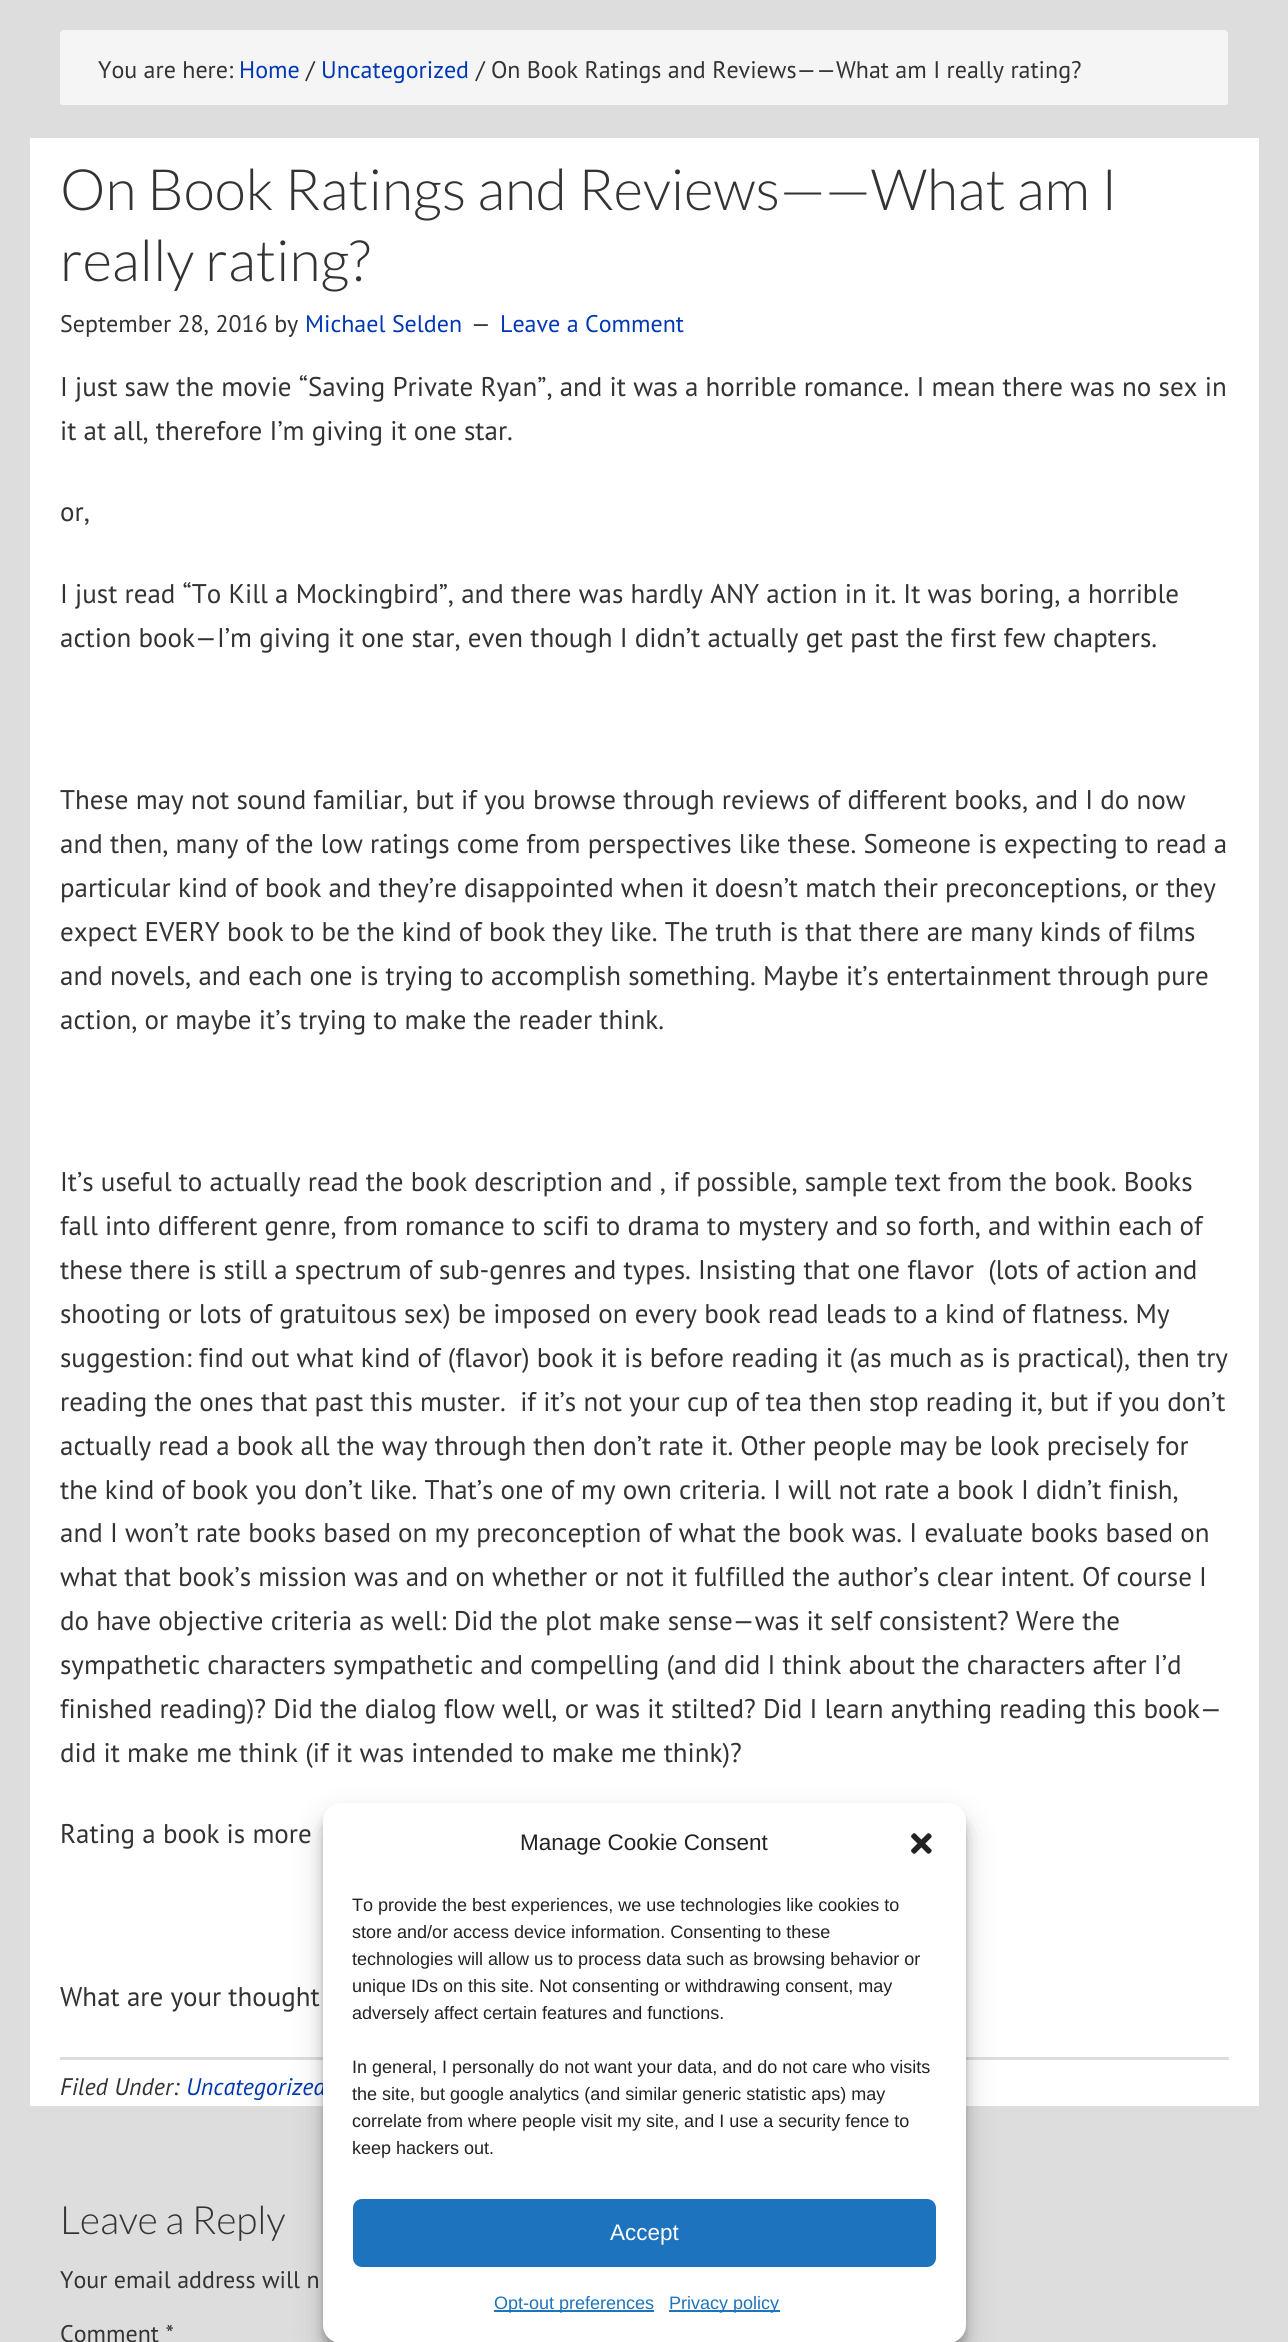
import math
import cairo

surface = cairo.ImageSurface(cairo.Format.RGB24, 1288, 2342)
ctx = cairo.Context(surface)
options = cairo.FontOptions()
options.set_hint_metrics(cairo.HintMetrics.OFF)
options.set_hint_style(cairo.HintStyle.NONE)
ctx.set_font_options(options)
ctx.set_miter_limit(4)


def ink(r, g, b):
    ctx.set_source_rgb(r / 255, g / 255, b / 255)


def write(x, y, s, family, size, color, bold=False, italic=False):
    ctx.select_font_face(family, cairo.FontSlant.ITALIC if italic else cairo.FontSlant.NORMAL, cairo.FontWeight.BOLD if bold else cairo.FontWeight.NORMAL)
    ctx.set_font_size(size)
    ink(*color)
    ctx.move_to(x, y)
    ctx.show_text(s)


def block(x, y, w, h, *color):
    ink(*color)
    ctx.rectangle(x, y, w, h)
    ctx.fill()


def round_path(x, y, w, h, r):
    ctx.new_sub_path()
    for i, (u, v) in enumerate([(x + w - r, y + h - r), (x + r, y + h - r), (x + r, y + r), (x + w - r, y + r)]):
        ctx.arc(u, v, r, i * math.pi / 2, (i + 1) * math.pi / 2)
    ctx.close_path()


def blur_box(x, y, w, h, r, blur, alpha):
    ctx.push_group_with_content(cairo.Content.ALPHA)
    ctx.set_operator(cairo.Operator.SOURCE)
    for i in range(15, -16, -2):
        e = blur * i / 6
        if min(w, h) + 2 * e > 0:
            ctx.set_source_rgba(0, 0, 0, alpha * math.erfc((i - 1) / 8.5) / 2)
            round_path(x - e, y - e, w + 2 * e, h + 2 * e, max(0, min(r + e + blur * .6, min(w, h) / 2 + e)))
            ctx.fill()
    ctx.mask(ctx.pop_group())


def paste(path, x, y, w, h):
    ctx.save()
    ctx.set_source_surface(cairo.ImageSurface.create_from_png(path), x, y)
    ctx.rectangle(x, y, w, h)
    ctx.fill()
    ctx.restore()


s1 = dict(family="PT Sans", size=24, color=(51, 51, 51))
s2 = dict(family="PT Sans", size=24, color=(0, 55, 180))
s3 = dict(family="Lato Light", size=57, color=(51, 51, 51))
s4 = dict(family="PT Sans", size=27, color=(51, 51, 51))
s5 = dict(family="PT Sans", size=24, color=(51, 51, 51), italic=True)
s6 = dict(family="PT Sans", size=24, color=(0, 55, 180), italic=True)
s7 = dict(family="Lato Light", size=39, color=(51, 51, 51))
s8 = dict(family="Liberation Sans", size=22.5, color=(34, 34, 34))
s9 = dict(family="Liberation Sans", size=18, color=(34, 34, 34))
s10 = dict(family="Liberation Sans", size=22.5, color=(255, 255, 255))
s11 = dict(family="Liberation Sans", size=18, color=(30, 115, 190))

ink(221, 221, 221)
ctx.paint()
ink(245, 245, 245)
ctx.new_path()
ctx.move_to(64, 30)
ctx.line_to(1224, 30)
ctx.curve_to(1226, 30, 1228, 32, 1228, 34)
ctx.line_to(1228, 104)
ctx.curve_to(1228, 104, 1226, 105, 1224, 105)
ctx.line_to(64, 105)
ctx.curve_to(62, 105, 60, 104, 60, 104)
ctx.line_to(60, 34)
ctx.curve_to(60, 32, 62, 30, 64, 30)
ctx.close_path()
ctx.fill()
write(98, 78, "You are here:", **s1)
write(239, 78, "Home", **s2)
write(306, 78, "/", **s1)
write(321, 78, "Uncategorized", **s2)
write(476, 78, "/ On Book Ratings and Reviews——What am I really rating?", **s1)
block(30, 138, 1229, 1968, 255, 255, 255)
write(60, 210, "On Book Ratings and Reviews——What am I", **s3)
write(60, 281, "really rating?", **s3)
write(60, 332, "September 28, 2016 by", **s1)
write(305, 332, "Michael Selden", **s2)
write(471, 332, "—", **s1)
write(500, 332, "Leave a Comment", **s2)
write(60, 396, "I just saw the movie “Saving Private Ryan”, and it was a horrible romance. I mean there was no sex in", **s4)
write(60, 440, "it at all, therefore I’m giving it one star.", **s4)
write(60, 521, "or,", **s4)
write(60, 603, "I just read “To Kill a Mockingbird”, and there was hardly ANY action in it. It was boring, a horrible", **s4)
write(60, 647, "action book—I’m giving it one star, even though I didn’t actually get past the first few chapters.", **s4)
write(60, 809, "These may not sound familiar, but if you browse through reviews of different books, and I do now", **s4)
write(60, 853, "and then, many of the low ratings come from perspectives like these. Someone is expecting to read a", **s4)
write(60, 897, "particular kind of book and they’re disappointed when it doesn’t match their preconceptions, or they", **s4)
write(60, 941, "expect EVERY book to be the kind of book they like. The truth is that there are many kinds of films", **s4)
write(60, 985, "and novels, and each one is trying to accomplish something. Maybe it’s entertainment through pure", **s4)
write(60, 1029, "action, or maybe it’s trying to make the reader think.", **s4)
write(60, 1191, "It’s useful to actually read the book description and , if possible, sample text from the book. Books", **s4)
write(60, 1235, "fall into different genre, from romance to scifi to drama to mystery and so forth, and within each of", **s4)
write(60, 1279, "these there is still a spectrum of sub-genres and types. Insisting that one flavor  (lots of action and", **s4)
write(60, 1323, "shooting or lots of gratuitous sex) be imposed on every book read leads to a kind of flatness. My", **s4)
write(60, 1367, "suggestion: find out what kind of (flavor) book it is before reading it (as much as is practical), then try", **s4)
write(60, 1411, "reading the ones that past this muster.  if it’s not your cup of tea then stop reading it, but if you don’t", **s4)
write(60, 1455, "actually read a book all the way through then don’t rate it. Other people may be look precisely for", **s4)
write(60, 1499, "the kind of book you don’t like. That’s one of my own criteria. I will not rate a book I didn’t finish,", **s4)
write(60, 1542, "and I won’t rate books based on my preconception of what the book was. I evaluate books based on", **s4)
write(60, 1586, "what that book’s mission was and on whether or not it fulfilled the author’s clear intent. Of course I", **s4)
write(60, 1630, "do have objective criteria as well: Did the plot make sense—was it self consistent? Were the", **s4)
write(60, 1674, "sympathetic characters sympathetic and compelling (and did I think about the characters after I’d", **s4)
write(60, 1718, "finished reading)? Did the dialog flow well, or was it stilted? Did I learn anything reading this book—", **s4)
write(60, 1762, "did it make me think (if it was intended to make me think)?", **s4)
write(60, 1843, "Rating a book is more", **s4)
write(60, 2006, "What are your thought", **s4)
block(60, 2057, 1169, 3, 221, 221, 221)
write(60, 2095, "Filed Under:", **s5)
write(186, 2095, "Uncategorized", **s6)
write(60, 2234, "Leave a Reply", **s7)
write(60, 2288, "Your email address will n", **s1)
write(60, 2342, "Comment *", **s1)
ink(0, 0, 0)
blur_box(323, 1812, 643, 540, 18, 4.5, 0.23)
blur_box(323, 1818, 643, 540, 18, 15, 0.19)
ink(255, 255, 255)
round_path(323, 1803, 643, 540, 18)
ctx.fill()
write(520, 1850, "Manage Cookie Consent", **s8)
paste("pic1.png", 911, 1833, 21, 21)
write(352, 1911, "To provide the best experiences, we use technologies like cookies to", **s9)
write(352, 1938, "store and/or access device information. Consenting to these", **s9)
write(352, 1965, "technologies will allow us to process data such as browsing behavior or", **s9)
write(352, 1992, "unique IDs on this site. Not consenting or withdrawing consent, may", **s9)
write(352, 2019, "adversely affect certain features and functions.", **s9)
write(352, 2073, "In general, I personally do not want your data, and do not care who visits", **s9)
write(352, 2100, "the site, but google analytics (and similar generic statistic aps) may", **s9)
write(352, 2127, "correlate from where people visit my site, and I use a security fence to", **s9)
write(352, 2154, "keep hackers out.", **s9)
ink(30, 115, 190)
round_path(354, 2200, 581, 66, 8)
ctx.fill_preserve()
ctx.stroke()
write(610, 2240, "Accept", **s10)
block(494, 2310, 160, 2, 30, 115, 190)
write(494, 2309, "Opt-out preferences", **s11)
block(669, 2310, 111, 2, 30, 115, 190)
write(669, 2309, "Privacy policy", **s11)
surface.write_to_png("screenshot.png")
